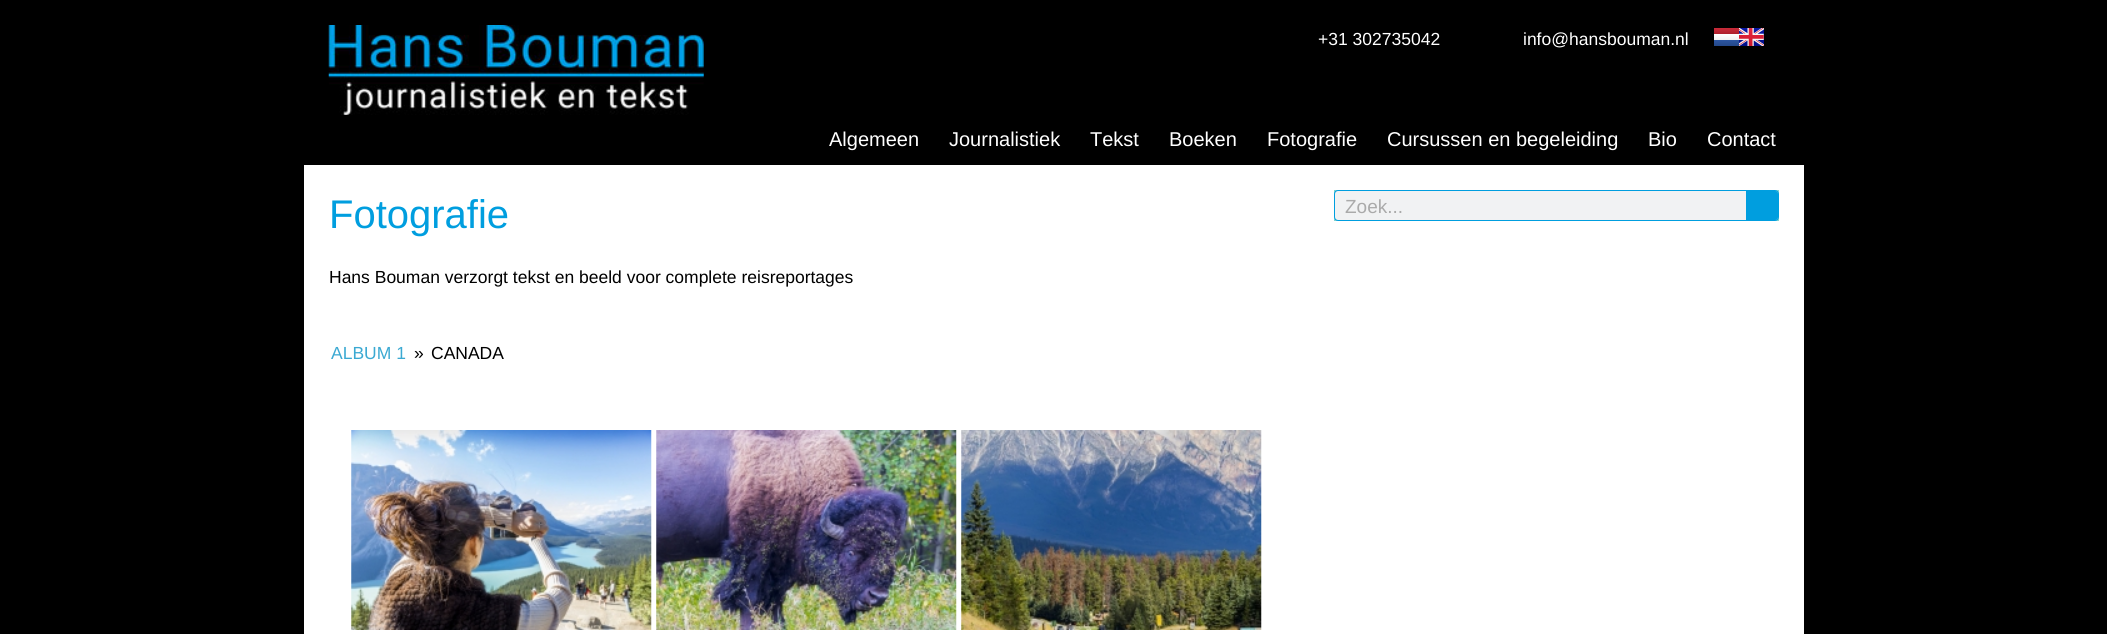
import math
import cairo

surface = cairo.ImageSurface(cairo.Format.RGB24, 2107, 634)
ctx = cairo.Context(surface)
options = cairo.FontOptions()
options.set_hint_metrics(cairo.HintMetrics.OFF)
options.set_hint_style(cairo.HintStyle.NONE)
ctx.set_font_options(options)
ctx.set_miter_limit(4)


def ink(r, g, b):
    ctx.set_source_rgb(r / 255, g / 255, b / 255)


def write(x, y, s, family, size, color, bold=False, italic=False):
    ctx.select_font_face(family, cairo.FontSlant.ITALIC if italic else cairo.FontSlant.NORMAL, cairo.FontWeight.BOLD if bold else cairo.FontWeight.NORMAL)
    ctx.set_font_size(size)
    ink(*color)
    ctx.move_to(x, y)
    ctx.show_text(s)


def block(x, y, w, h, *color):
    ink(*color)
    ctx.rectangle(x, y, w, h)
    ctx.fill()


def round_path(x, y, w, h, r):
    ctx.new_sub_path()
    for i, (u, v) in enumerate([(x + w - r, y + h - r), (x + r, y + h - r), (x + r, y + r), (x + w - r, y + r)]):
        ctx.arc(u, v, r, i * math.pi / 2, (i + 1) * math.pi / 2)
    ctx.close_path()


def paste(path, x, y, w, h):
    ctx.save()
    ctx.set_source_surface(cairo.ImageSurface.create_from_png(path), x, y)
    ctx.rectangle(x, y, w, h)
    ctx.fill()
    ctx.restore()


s1 = dict(family="Liberation Sans", size=17.5, color=(255, 255, 255))
s2 = dict(family="Liberation Sans", size=20, color=(255, 255, 255))
s3 = dict(family="Liberation Sans", size=40, color=(0, 158, 223))
s4 = dict(family="Liberation Sans", size=17.5, color=(0, 0, 0))
s5 = dict(family="Liberation Sans", size=17.5, color=(59, 169, 210))
s6 = dict(family="Liberation Sans", size=19, color=(170, 170, 170))

ink(0, 0, 0)
ctx.paint()
block(304, 165, 1500, 469, 255, 255, 255)
paste("pic1.png", 328, 25, 376, 90)
write(1318, 45, "+31 302735042", **s1)
write(1523, 45, "info@hansbouman.nl", **s1)
gradient = cairo.LinearGradient(1726, 28, 1726, 34)
gradient.add_color_stop_rgba(0, 0.792, 0.169, 0.224, 1)
gradient.add_color_stop_rgba(1, 0.675, 0.122, 0.173, 1)
ctx.set_source(gradient)
ctx.rectangle(1714, 28, 25, 6)
ctx.fill()
gradient = cairo.LinearGradient(1726, 34, 1726, 40)
gradient.add_color_stop_rgba(0, 1, 1, 1, 1)
gradient.add_color_stop_rgba(1, 0.941, 0.941, 0.941, 1)
ctx.set_source(gradient)
ctx.rectangle(1714, 34, 25, 6)
ctx.fill()
gradient = cairo.LinearGradient(1726, 40, 1726, 46)
gradient.add_color_stop_rgba(0, 0.173, 0.337, 0.635, 1)
gradient.add_color_stop_rgba(1, 0.141, 0.282, 0.537, 1)
ctx.set_source(gradient)
ctx.rectangle(1714, 40, 25, 6)
ctx.fill()
paste("pic2.png", 1739, 28, 25, 18)
write(829, 146, "Algemeen", **s2)
write(949, 146, "Journalistiek", **s2)
write(1090, 146, "Tekst", **s2)
write(1169, 146, "Boeken", **s2)
write(1267, 146, "Fotografie", **s2)
write(1387, 146, "Cursussen en begeleiding", **s2)
write(1648, 146, "Bio", **s2)
write(1707, 146, "Contact", **s2)
write(329, 228, "Fotografie", **s3)
write(329, 283, "Hans Bouman verzorgt tekst en beeld voor complete reisreportages", **s4)
write(331, 359, "ALBUM 1", **s5)
write(414, 359, "»", **s4)
write(431, 359, "CANADA", **s4)
paste("pic3.png", 351, 430, 301, 200)
paste("pic4.png", 656, 430, 301, 200)
paste("pic5.png", 961, 430, 301, 200)
block(1334, 190, 445, 31, 131, 212, 206)
ink(241, 242, 243)
round_path(1334.5, 190.5, 444, 30, 3.5)
ctx.fill_preserve()
ink(0, 158, 223)
ctx.set_line_width(1)
ctx.stroke()
write(1345, 213, "Zoek...", **s6)
ink(0, 158, 223)
ctx.new_path()
ctx.move_to(1746, 191)
ctx.line_to(1775.5, 191)
ctx.curve_to(1777, 191, 1778, 192, 1778, 193.5)
ctx.line_to(1778, 217.5)
ctx.curve_to(1778, 219, 1777, 220, 1775.5, 220)
ctx.line_to(1746, 220)
ctx.close_path()
ctx.fill()
surface.write_to_png("screenshot.png")
